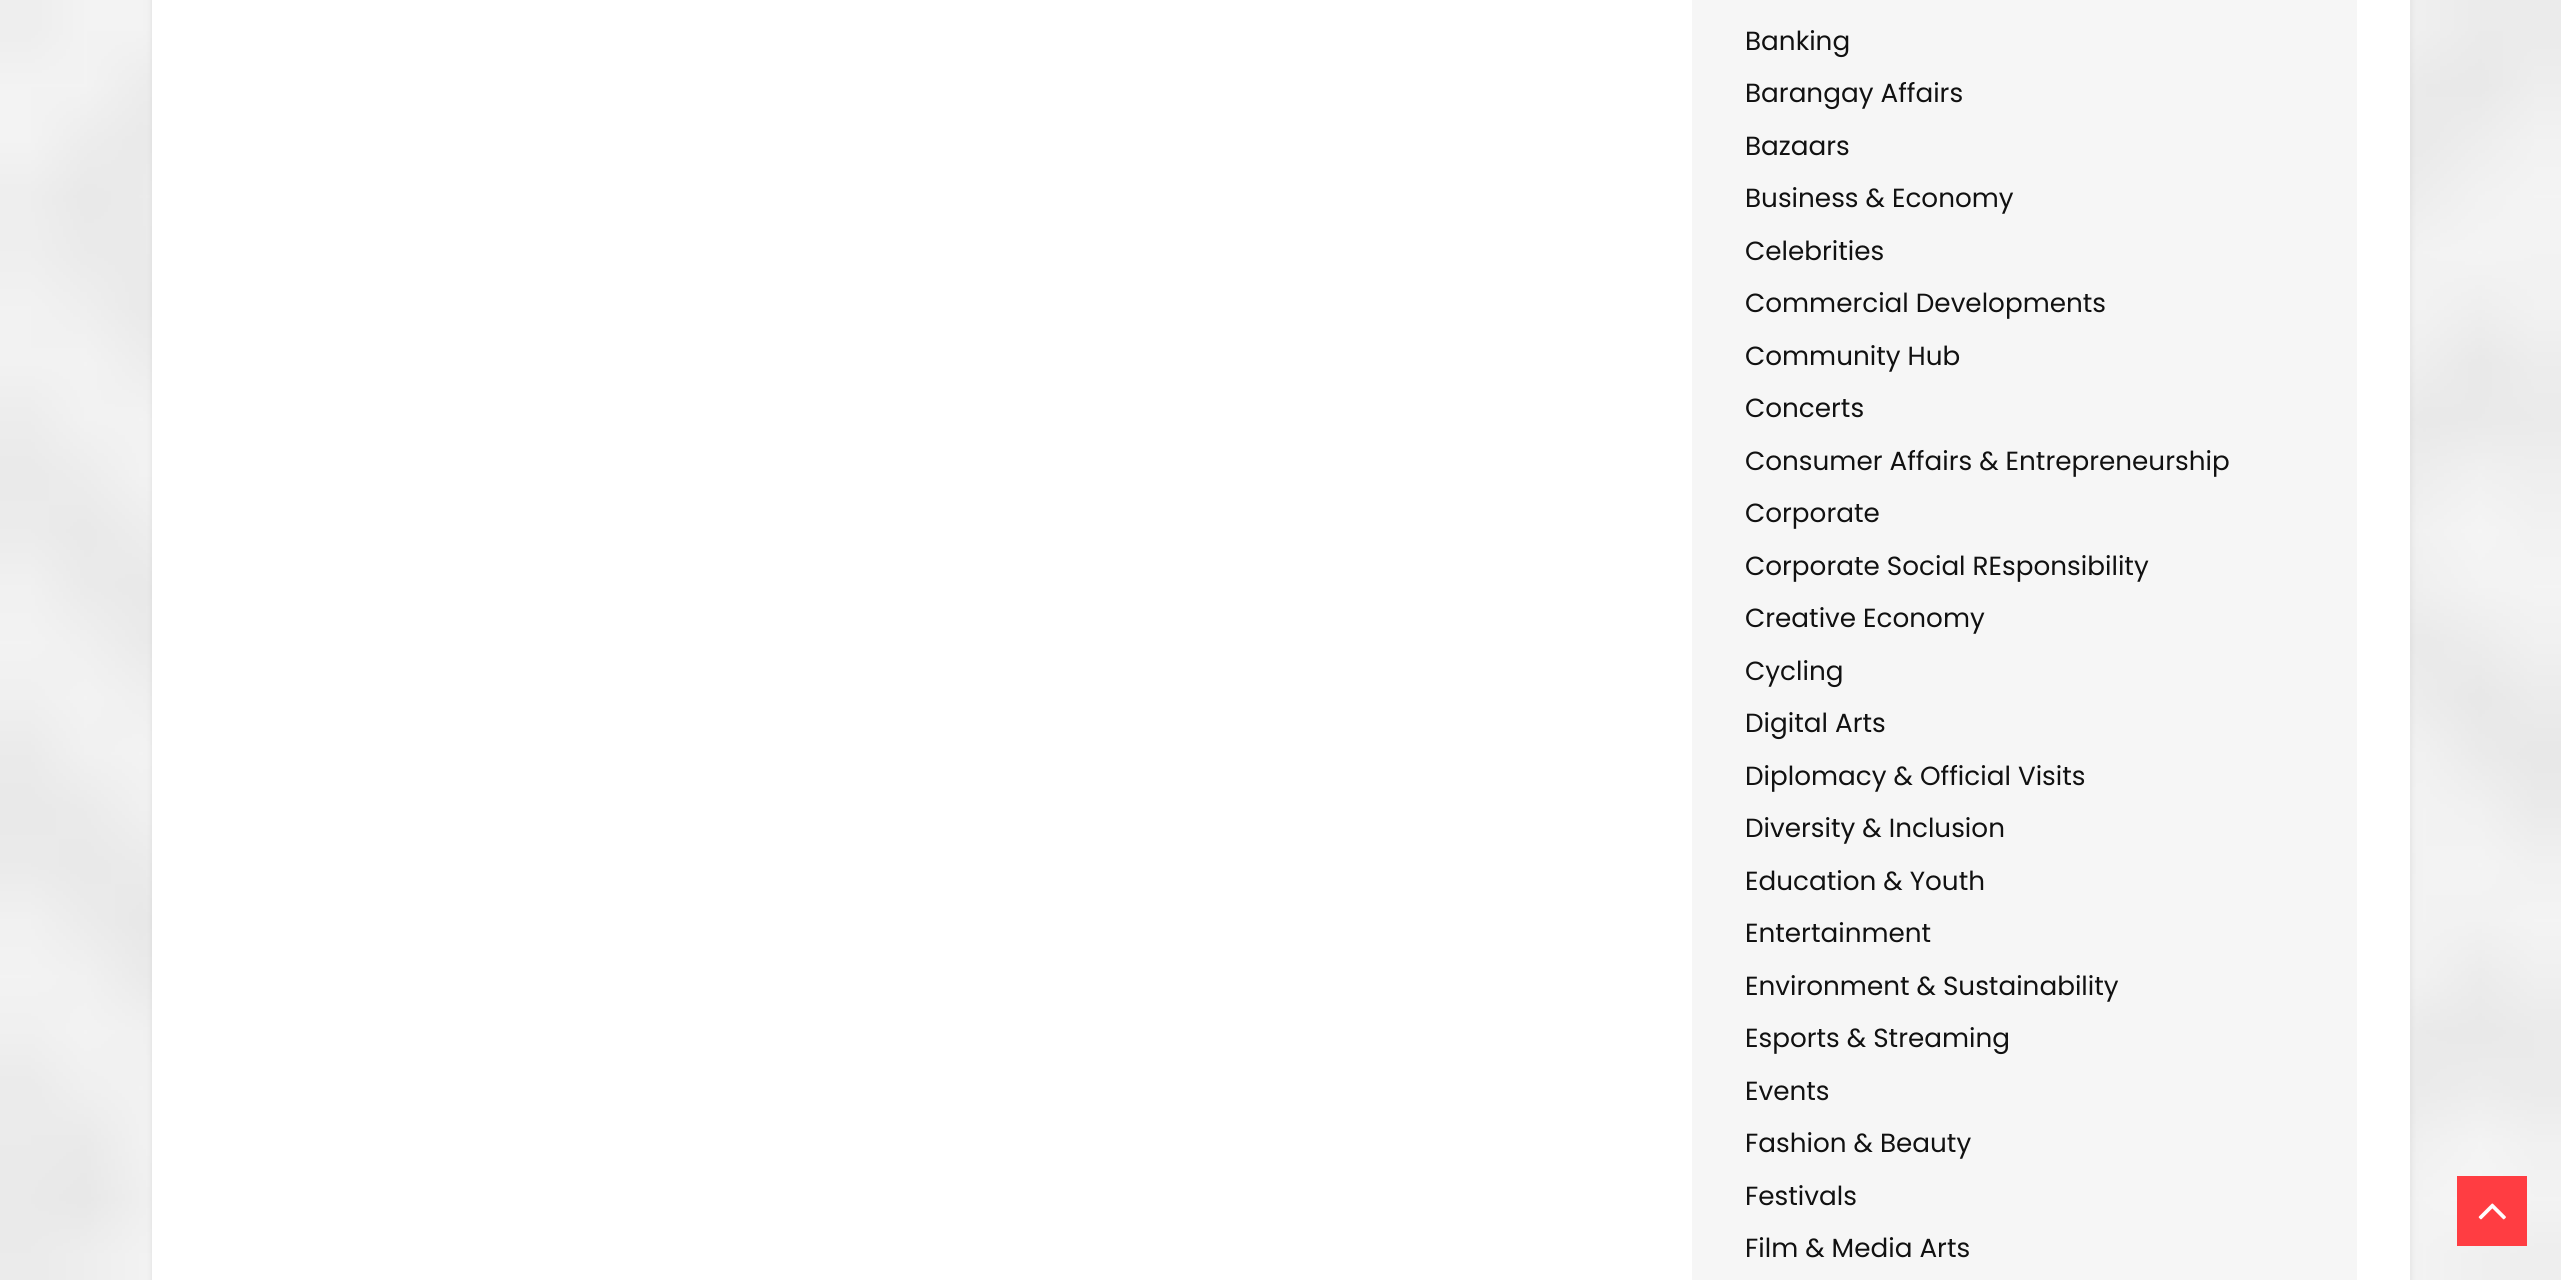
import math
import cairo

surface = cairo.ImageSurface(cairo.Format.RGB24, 2561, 1280)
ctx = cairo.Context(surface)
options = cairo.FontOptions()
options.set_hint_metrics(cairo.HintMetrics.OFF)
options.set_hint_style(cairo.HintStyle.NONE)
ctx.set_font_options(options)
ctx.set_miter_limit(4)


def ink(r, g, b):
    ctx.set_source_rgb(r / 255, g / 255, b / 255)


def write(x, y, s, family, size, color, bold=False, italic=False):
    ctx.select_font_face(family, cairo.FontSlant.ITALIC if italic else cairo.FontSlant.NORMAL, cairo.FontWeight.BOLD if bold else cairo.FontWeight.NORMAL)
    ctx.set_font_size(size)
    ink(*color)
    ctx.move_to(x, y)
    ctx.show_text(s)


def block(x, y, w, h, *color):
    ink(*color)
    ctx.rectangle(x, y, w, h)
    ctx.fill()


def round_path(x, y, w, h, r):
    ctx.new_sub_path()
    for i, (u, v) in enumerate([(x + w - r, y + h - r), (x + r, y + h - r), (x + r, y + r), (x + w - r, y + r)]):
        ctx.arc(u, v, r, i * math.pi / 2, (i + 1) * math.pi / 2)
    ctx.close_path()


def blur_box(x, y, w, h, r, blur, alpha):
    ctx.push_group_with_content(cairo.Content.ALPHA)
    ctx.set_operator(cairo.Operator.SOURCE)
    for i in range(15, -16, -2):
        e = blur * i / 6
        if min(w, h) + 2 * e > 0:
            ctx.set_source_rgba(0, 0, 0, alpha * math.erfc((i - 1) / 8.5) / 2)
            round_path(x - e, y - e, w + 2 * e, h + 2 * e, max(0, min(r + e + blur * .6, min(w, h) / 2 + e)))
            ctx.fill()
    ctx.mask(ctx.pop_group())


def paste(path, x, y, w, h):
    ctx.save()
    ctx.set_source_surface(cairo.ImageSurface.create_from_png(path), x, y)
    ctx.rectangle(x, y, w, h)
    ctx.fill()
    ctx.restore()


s1 = dict(family="Poppins", size=26.25, color=(17, 17, 17))

ink(255, 255, 255)
ctx.paint()
paste("pic1.png", 0, 0, 2561, 1280)
ink(0, 0, 0)
blur_box(151, -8, 2261, 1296, 0, 2.5, 0.05)
block(152, 0, 2258, 1280, 255, 255, 255)
block(1692, 0, 665, 1280, 246, 246, 246)
write(1745, 50, "Banking", **s1)
write(1745, 102, "Barangay Affairs", **s1)
write(1745, 155, "Bazaars", **s1)
write(1745, 207, "Business & Economy", **s1)
write(1745, 260, "Celebrities", **s1)
write(1745, 312, "Commercial Developments", **s1)
write(1745, 365, "Community Hub", **s1)
write(1745, 417, "Concerts", **s1)
write(1745, 470, "Consumer Affairs & Entrepreneurship", **s1)
write(1745, 522, "Corporate", **s1)
write(1745, 575, "Corporate Social REsponsibility", **s1)
write(1745, 627, "Creative Economy", **s1)
write(1745, 680, "Cycling", **s1)
write(1745, 732, "Digital Arts", **s1)
write(1745, 785, "Diplomacy & Official Visits", **s1)
write(1745, 837, "Diversity & Inclusion", **s1)
write(1745, 890, "Education & Youth", **s1)
write(1745, 942, "Entertainment", **s1)
write(1745, 995, "Environment & Sustainability", **s1)
write(1745, 1047, "Esports & Streaming", **s1)
write(1745, 1100, "Events", **s1)
write(1745, 1152, "Fashion & Beauty", **s1)
write(1745, 1205, "Festivals", **s1)
write(1745, 1257, "Film & Media Arts", **s1)
ctx.set_source_rgba(1, 0.235, 0.255, 0.99)
ctx.rectangle(2457, 1176, 70, 70)
ctx.fill()
paste("pic2.png", 2478, 1203, 28, 17)
surface.write_to_png("screenshot.png")
